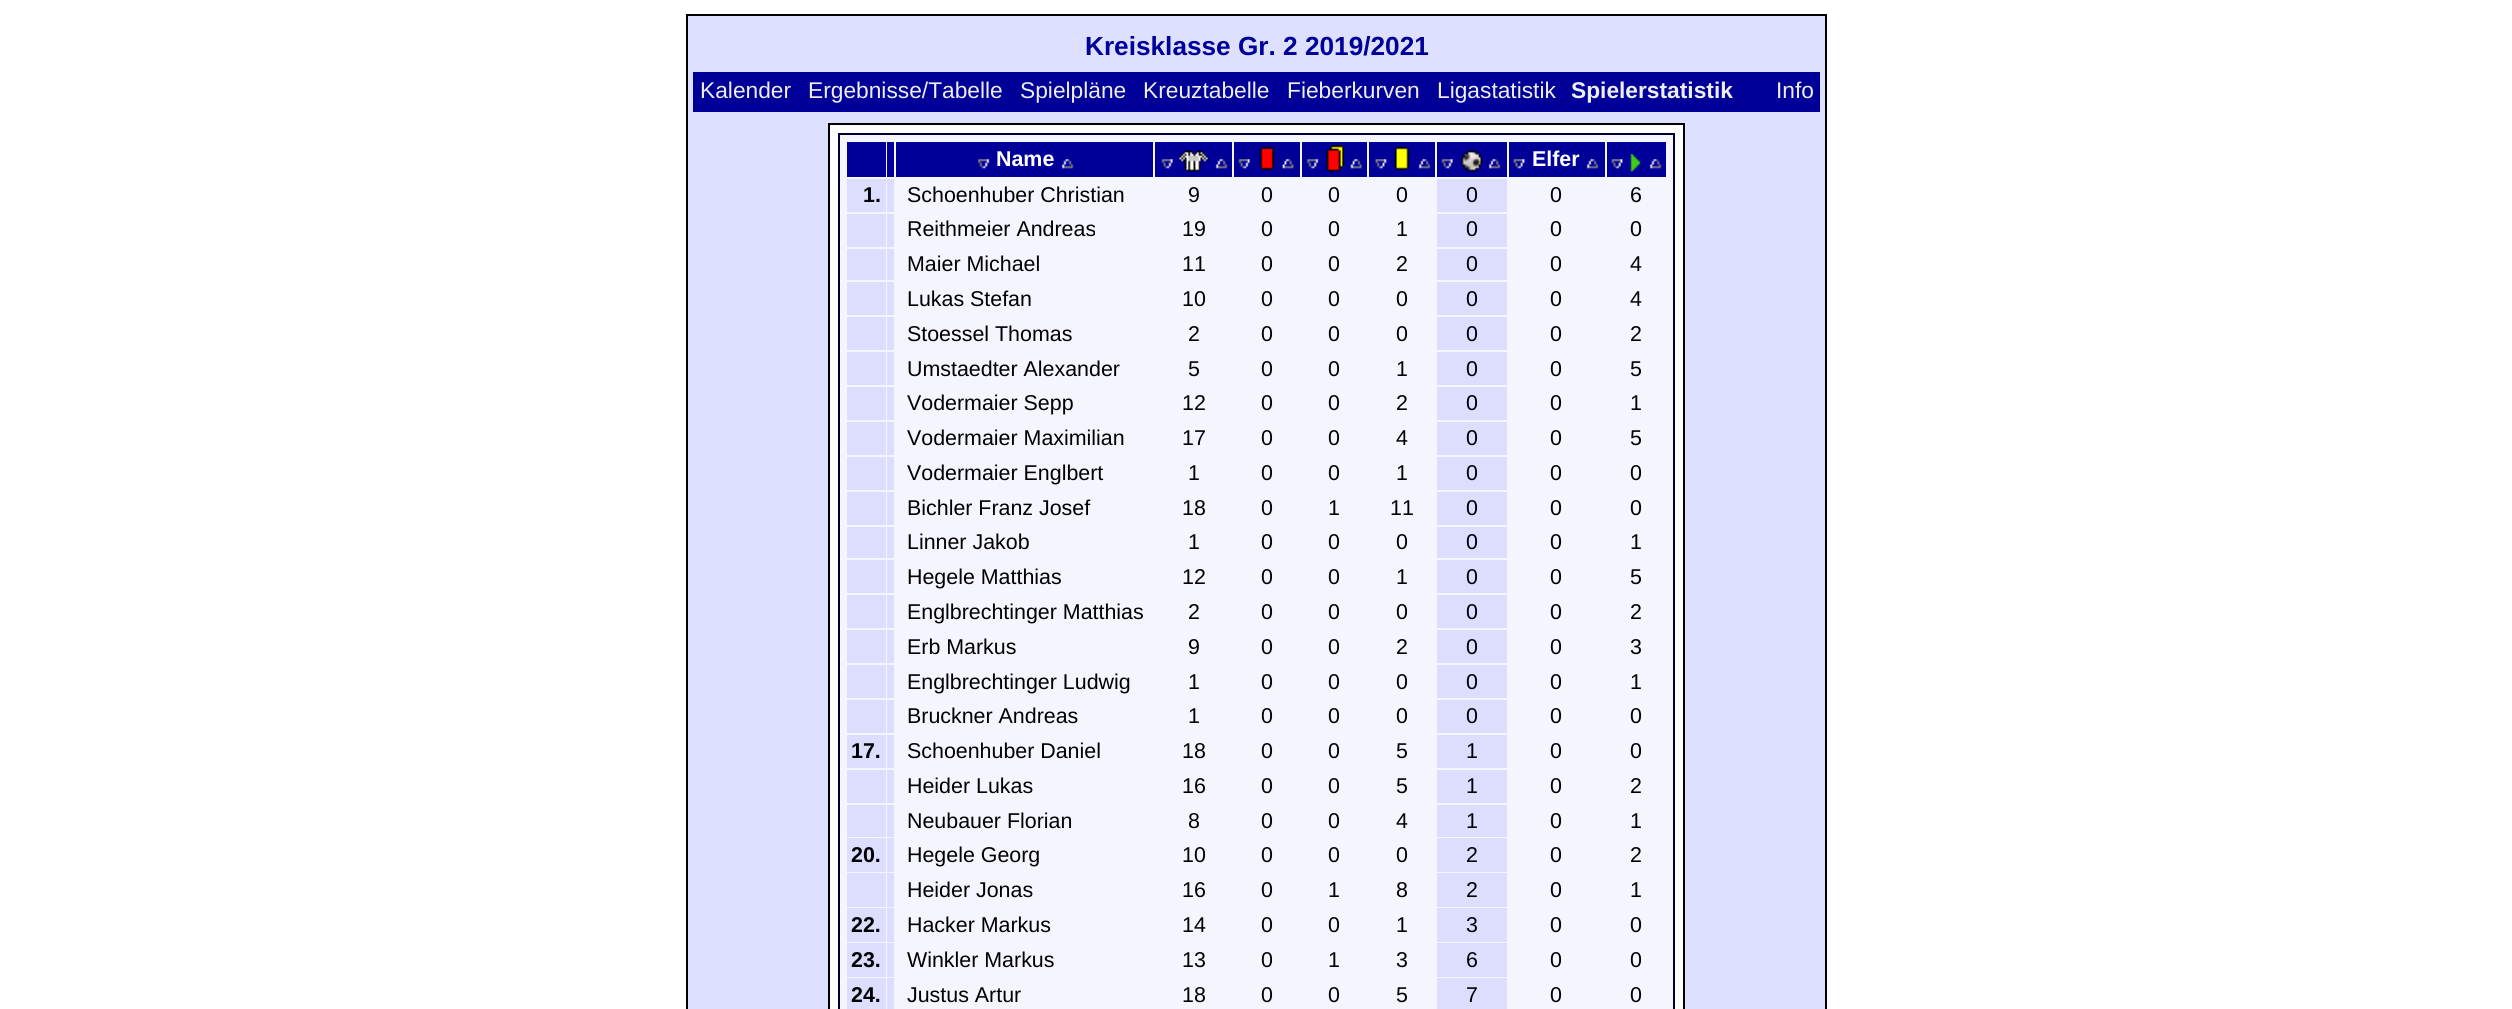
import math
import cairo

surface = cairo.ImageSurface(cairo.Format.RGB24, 2512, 1009)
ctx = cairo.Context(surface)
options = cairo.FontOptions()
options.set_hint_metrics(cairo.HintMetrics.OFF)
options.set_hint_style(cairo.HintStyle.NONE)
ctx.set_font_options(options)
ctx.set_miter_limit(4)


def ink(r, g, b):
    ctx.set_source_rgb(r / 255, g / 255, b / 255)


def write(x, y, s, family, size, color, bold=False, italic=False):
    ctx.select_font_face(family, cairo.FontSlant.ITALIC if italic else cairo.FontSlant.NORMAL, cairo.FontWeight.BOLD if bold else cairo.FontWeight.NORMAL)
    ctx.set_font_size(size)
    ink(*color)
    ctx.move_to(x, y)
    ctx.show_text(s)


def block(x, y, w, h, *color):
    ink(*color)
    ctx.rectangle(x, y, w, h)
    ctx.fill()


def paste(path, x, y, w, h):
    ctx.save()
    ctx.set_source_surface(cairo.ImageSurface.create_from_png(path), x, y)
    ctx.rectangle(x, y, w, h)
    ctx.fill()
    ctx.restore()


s1 = dict(family="Liberation Sans", size=26.2, color=(0, 0, 153), bold=True)
s2 = dict(family="Liberation Sans", size=22.75, color=(238, 238, 238))
s3 = dict(family="Liberation Sans", size=22.75, color=(238, 238, 238), bold=True)
s4 = dict(family="Liberation Sans", size=21.4, color=(255, 255, 255), bold=True)
s5 = dict(family="Liberation Sans", size=21.4, color=(0, 0, 0), bold=True)
s6 = dict(family="Liberation Sans", size=21.4, color=(0, 0, 0))

ink(255, 255, 255)
ctx.paint()
ink(221, 224, 255)
ctx.rectangle(687, 15, 1139, 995)
ctx.fill_preserve()
ink(0, 0, 0)
ctx.stroke()
write(1085, 55, "Kreisklasse Gr. 2 2019/2021", **s1)
block(693, 72, 1127, 40, 0, 0, 153)
write(700, 98, "Kalender", **s2)
write(808, 98, "Ergebnisse/Tabelle", **s2)
write(1020, 98, "Spielpläne", **s2)
write(1143, 98, "Kreuztabelle", **s2)
write(1287, 98, "Fieberkurven", **s2)
write(1437, 98, "Ligastatistik", **s2)
write(1571, 98, "Spielerstatistik", **s3)
write(1776, 98, "Info", **s2)
ink(255, 255, 255)
ctx.rectangle(829, 124, 855, 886)
ctx.fill_preserve()
ink(0, 0, 0)
ctx.stroke()
ink(245, 245, 255)
ctx.rectangle(839, 134, 835, 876)
ctx.fill_preserve()
ink(0, 0, 51)
ctx.stroke()
block(847, 142, 39, 35, 0, 0, 153)
block(887, 142, 7, 35, 0, 0, 153)
block(896, 142, 257, 35, 0, 0, 153)
paste("pic1.png", 977, 159, 13, 10)
write(996, 166, "Name", **s4)
paste("pic2.png", 1061, 159, 13, 10)
block(1155, 142, 77, 35, 0, 0, 153)
paste("pic3.png", 1161, 159, 12, 10)
paste("pic4.png", 1179, 150, 29, 22)
paste("pic2.png", 1215, 159, 13, 10)
block(1234, 142, 66, 35, 0, 0, 153)
paste("pic3.png", 1238, 159, 12, 10)
paste("pic5.png", 1259, 146, 16, 25)
paste("pic6.png", 1282, 159, 12, 10)
block(1302, 142, 65, 35, 0, 0, 153)
paste("pic1.png", 1306, 159, 13, 10)
paste("pic7.png", 1326, 145, 18, 27)
paste("pic8.png", 1350, 159, 12, 10)
block(1369, 142, 66, 35, 0, 0, 153)
paste("pic9.png", 1375, 159, 12, 10)
paste("pic10.png", 1394, 146, 16, 25)
paste("pic11.png", 1418, 159, 13, 10)
block(1437, 142, 70, 35, 0, 0, 153)
paste("pic3.png", 1441, 159, 12, 10)
paste("pic12.png", 1461, 150, 22, 22)
paste("pic11.png", 1488, 159, 13, 10)
block(1509, 142, 96, 35, 0, 0, 153)
paste("pic13.png", 1513, 159, 12, 10)
write(1532, 166, "Elfer", **s4)
paste("pic11.png", 1586, 159, 13, 10)
block(1607, 142, 59, 35, 0, 0, 153)
paste("pic14.png", 1611, 159, 12, 10)
paste("pic15.png", 1630, 154, 11, 18)
paste("pic11.png", 1649, 159, 13, 10)
block(847, 179, 39, 33, 221, 221, 255)
write(863, 202, "1.", **s5)
block(887, 179, 7, 33, 221, 221, 255)
write(907, 202, "Schoenhuber Christian", **s6)
write(1188, 202, "9", **s6)
write(1261, 202, "0", **s6)
write(1328, 202, "0", **s6)
write(1396, 202, "0", **s6)
block(1437, 179, 70, 33, 221, 221, 255)
write(1466, 202, "0", **s6)
write(1550, 202, "0", **s6)
write(1630, 202, "6", **s6)
block(847, 214, 39, 33, 221, 221, 255)
block(887, 214, 7, 33, 221, 221, 255)
write(907, 236, "Reithmeier Andreas", **s6)
write(1182, 236, "19", **s6)
write(1261, 236, "0", **s6)
write(1328, 236, "0", **s6)
write(1396, 236, "1", **s6)
block(1437, 214, 70, 33, 221, 221, 255)
write(1466, 236, "0", **s6)
write(1550, 236, "0", **s6)
write(1630, 236, "0", **s6)
block(847, 249, 39, 31, 221, 221, 255)
block(887, 249, 7, 31, 221, 221, 255)
write(907, 271, "Maier Michael", **s6)
write(1182, 271, "11", **s6)
write(1261, 271, "0", **s6)
write(1328, 271, "0", **s6)
write(1396, 271, "2", **s6)
block(1437, 249, 70, 31, 221, 221, 255)
write(1466, 271, "0", **s6)
write(1550, 271, "0", **s6)
write(1630, 271, "4", **s6)
block(847, 282, 39, 33, 221, 221, 255)
block(887, 282, 7, 33, 221, 221, 255)
write(907, 306, "Lukas Stefan", **s6)
write(1182, 306, "10", **s6)
write(1261, 306, "0", **s6)
write(1328, 306, "0", **s6)
write(1396, 306, "0", **s6)
block(1437, 282, 70, 33, 221, 221, 255)
write(1466, 306, "0", **s6)
write(1550, 306, "0", **s6)
write(1630, 306, "4", **s6)
block(847, 317, 39, 33, 221, 221, 255)
block(887, 317, 7, 33, 221, 221, 255)
write(907, 341, "Stoessel Thomas", **s6)
write(1188, 341, "2", **s6)
write(1261, 341, "0", **s6)
write(1328, 341, "0", **s6)
write(1396, 341, "0", **s6)
block(1437, 317, 70, 33, 221, 221, 255)
write(1466, 341, "0", **s6)
write(1550, 341, "0", **s6)
write(1630, 341, "2", **s6)
block(847, 352, 39, 33, 221, 221, 255)
block(887, 352, 7, 33, 221, 221, 255)
write(907, 376, "Umstaedter Alexander", **s6)
write(1188, 376, "5", **s6)
write(1261, 376, "0", **s6)
write(1328, 376, "0", **s6)
write(1396, 376, "1", **s6)
block(1437, 352, 70, 33, 221, 221, 255)
write(1466, 376, "0", **s6)
write(1550, 376, "0", **s6)
write(1630, 376, "5", **s6)
block(847, 387, 39, 33, 221, 221, 255)
block(887, 387, 7, 33, 221, 221, 255)
write(907, 410, "Vodermaier Sepp", **s6)
write(1182, 410, "12", **s6)
write(1261, 410, "0", **s6)
write(1328, 410, "0", **s6)
write(1396, 410, "2", **s6)
block(1437, 387, 70, 33, 221, 221, 255)
write(1466, 410, "0", **s6)
write(1550, 410, "0", **s6)
write(1630, 410, "1", **s6)
block(847, 422, 39, 33, 221, 221, 255)
block(887, 422, 7, 33, 221, 221, 255)
write(907, 445, "Vodermaier Maximilian", **s6)
write(1182, 445, "17", **s6)
write(1261, 445, "0", **s6)
write(1328, 445, "0", **s6)
write(1396, 445, "4", **s6)
block(1437, 422, 70, 33, 221, 221, 255)
write(1466, 445, "0", **s6)
write(1550, 445, "0", **s6)
write(1630, 445, "5", **s6)
block(847, 457, 39, 33, 221, 221, 255)
block(887, 457, 7, 33, 221, 221, 255)
write(907, 480, "Vodermaier Englbert", **s6)
write(1188, 480, "1", **s6)
write(1261, 480, "0", **s6)
write(1328, 480, "0", **s6)
write(1396, 480, "1", **s6)
block(1437, 457, 70, 33, 221, 221, 255)
write(1466, 480, "0", **s6)
write(1550, 480, "0", **s6)
write(1630, 480, "0", **s6)
block(847, 492, 39, 33, 221, 221, 255)
block(887, 492, 7, 33, 221, 221, 255)
write(907, 515, "Bichler Franz Josef", **s6)
write(1182, 515, "18", **s6)
write(1261, 515, "0", **s6)
write(1328, 515, "1", **s6)
write(1390, 515, "11", **s6)
block(1437, 492, 70, 33, 221, 221, 255)
write(1466, 515, "0", **s6)
write(1550, 515, "0", **s6)
write(1630, 515, "0", **s6)
block(847, 527, 39, 31, 221, 221, 255)
block(887, 527, 7, 31, 221, 221, 255)
write(907, 549, "Linner Jakob", **s6)
write(1188, 549, "1", **s6)
write(1261, 549, "0", **s6)
write(1328, 549, "0", **s6)
write(1396, 549, "0", **s6)
block(1437, 527, 70, 31, 221, 221, 255)
write(1466, 549, "0", **s6)
write(1550, 549, "0", **s6)
write(1630, 549, "1", **s6)
block(847, 560, 39, 33, 221, 221, 255)
block(887, 560, 7, 33, 221, 221, 255)
write(907, 584, "Hegele Matthias", **s6)
write(1182, 584, "12", **s6)
write(1261, 584, "0", **s6)
write(1328, 584, "0", **s6)
write(1396, 584, "1", **s6)
block(1437, 560, 70, 33, 221, 221, 255)
write(1466, 584, "0", **s6)
write(1550, 584, "0", **s6)
write(1630, 584, "5", **s6)
block(847, 595, 39, 33, 221, 221, 255)
block(887, 595, 7, 33, 221, 221, 255)
write(907, 619, "Englbrechtinger Matthias", **s6)
write(1188, 619, "2", **s6)
write(1261, 619, "0", **s6)
write(1328, 619, "0", **s6)
write(1396, 619, "0", **s6)
block(1437, 595, 70, 33, 221, 221, 255)
write(1466, 619, "0", **s6)
write(1550, 619, "0", **s6)
write(1630, 619, "2", **s6)
block(847, 630, 39, 33, 221, 221, 255)
block(887, 630, 7, 33, 221, 221, 255)
write(907, 654, "Erb Markus", **s6)
write(1188, 654, "9", **s6)
write(1261, 654, "0", **s6)
write(1328, 654, "0", **s6)
write(1396, 654, "2", **s6)
block(1437, 630, 70, 33, 221, 221, 255)
write(1466, 654, "0", **s6)
write(1550, 654, "0", **s6)
write(1630, 654, "3", **s6)
block(847, 665, 39, 33, 221, 221, 255)
block(887, 665, 7, 33, 221, 221, 255)
write(907, 689, "Englbrechtinger Ludwig", **s6)
write(1188, 689, "1", **s6)
write(1261, 689, "0", **s6)
write(1328, 689, "0", **s6)
write(1396, 689, "0", **s6)
block(1437, 665, 70, 33, 221, 221, 255)
write(1466, 689, "0", **s6)
write(1550, 689, "0", **s6)
write(1630, 689, "1", **s6)
block(847, 700, 39, 33, 221, 221, 255)
block(887, 700, 7, 33, 221, 221, 255)
write(907, 723, "Bruckner Andreas", **s6)
write(1188, 723, "1", **s6)
write(1261, 723, "0", **s6)
write(1328, 723, "0", **s6)
write(1396, 723, "0", **s6)
block(1437, 700, 70, 33, 221, 221, 255)
write(1466, 723, "0", **s6)
write(1550, 723, "0", **s6)
write(1630, 723, "0", **s6)
block(847, 735, 39, 33, 221, 221, 255)
write(851, 758, "17.", **s5)
block(887, 735, 7, 33, 221, 221, 255)
write(907, 758, "Schoenhuber Daniel", **s6)
write(1182, 758, "18", **s6)
write(1261, 758, "0", **s6)
write(1328, 758, "0", **s6)
write(1396, 758, "5", **s6)
block(1437, 735, 70, 33, 221, 221, 255)
write(1466, 758, "1", **s6)
write(1550, 758, "0", **s6)
write(1630, 758, "0", **s6)
block(847, 770, 39, 33, 221, 221, 255)
block(887, 770, 7, 33, 221, 221, 255)
write(907, 793, "Heider Lukas", **s6)
write(1182, 793, "16", **s6)
write(1261, 793, "0", **s6)
write(1328, 793, "0", **s6)
write(1396, 793, "5", **s6)
block(1437, 770, 70, 33, 221, 221, 255)
write(1466, 793, "1", **s6)
write(1550, 793, "0", **s6)
write(1630, 793, "2", **s6)
block(847, 805, 39, 32, 221, 221, 255)
block(887, 805, 7, 32, 221, 221, 255)
write(907, 828, "Neubauer Florian", **s6)
write(1188, 828, "8", **s6)
write(1261, 828, "0", **s6)
write(1328, 828, "0", **s6)
write(1396, 828, "4", **s6)
block(1437, 805, 70, 32, 221, 221, 255)
write(1466, 828, "1", **s6)
write(1550, 828, "0", **s6)
write(1630, 828, "1", **s6)
block(847, 838, 39, 34, 221, 221, 255)
write(851, 862, "20.", **s5)
block(887, 838, 7, 34, 221, 221, 255)
write(907, 862, "Hegele Georg", **s6)
write(1182, 862, "10", **s6)
write(1261, 862, "0", **s6)
write(1328, 862, "0", **s6)
write(1396, 862, "0", **s6)
block(1437, 838, 70, 34, 221, 221, 255)
write(1466, 862, "2", **s6)
write(1550, 862, "0", **s6)
write(1630, 862, "2", **s6)
block(847, 873, 39, 34, 221, 221, 255)
block(887, 873, 7, 34, 221, 221, 255)
write(907, 897, "Heider Jonas", **s6)
write(1182, 897, "16", **s6)
write(1261, 897, "0", **s6)
write(1328, 897, "1", **s6)
write(1396, 897, "8", **s6)
block(1437, 873, 70, 34, 221, 221, 255)
write(1466, 897, "2", **s6)
write(1550, 897, "0", **s6)
write(1630, 897, "1", **s6)
block(847, 908, 39, 34, 221, 221, 255)
write(851, 932, "22.", **s5)
block(887, 908, 7, 34, 221, 221, 255)
write(907, 932, "Hacker Markus", **s6)
write(1182, 932, "14", **s6)
write(1261, 932, "0", **s6)
write(1328, 932, "0", **s6)
write(1396, 932, "1", **s6)
block(1437, 908, 70, 34, 221, 221, 255)
write(1466, 932, "3", **s6)
write(1550, 932, "0", **s6)
write(1630, 932, "0", **s6)
block(847, 943, 39, 34, 221, 221, 255)
write(851, 967, "23.", **s5)
block(887, 943, 7, 34, 221, 221, 255)
write(907, 967, "Winkler Markus", **s6)
write(1182, 967, "13", **s6)
write(1261, 967, "0", **s6)
write(1328, 967, "1", **s6)
write(1396, 967, "3", **s6)
block(1437, 943, 70, 34, 221, 221, 255)
write(1466, 967, "6", **s6)
write(1550, 967, "0", **s6)
write(1630, 967, "0", **s6)
block(847, 978, 39, 31, 221, 221, 255)
write(851, 1002, "24.", **s5)
block(887, 978, 7, 31, 221, 221, 255)
write(907, 1002, "Justus Artur", **s6)
write(1182, 1002, "18", **s6)
write(1261, 1002, "0", **s6)
write(1328, 1002, "0", **s6)
write(1396, 1002, "5", **s6)
block(1437, 978, 70, 31, 221, 221, 255)
write(1466, 1002, "7", **s6)
write(1550, 1002, "0", **s6)
write(1630, 1002, "0", **s6)
surface.write_to_png("screenshot.png")
